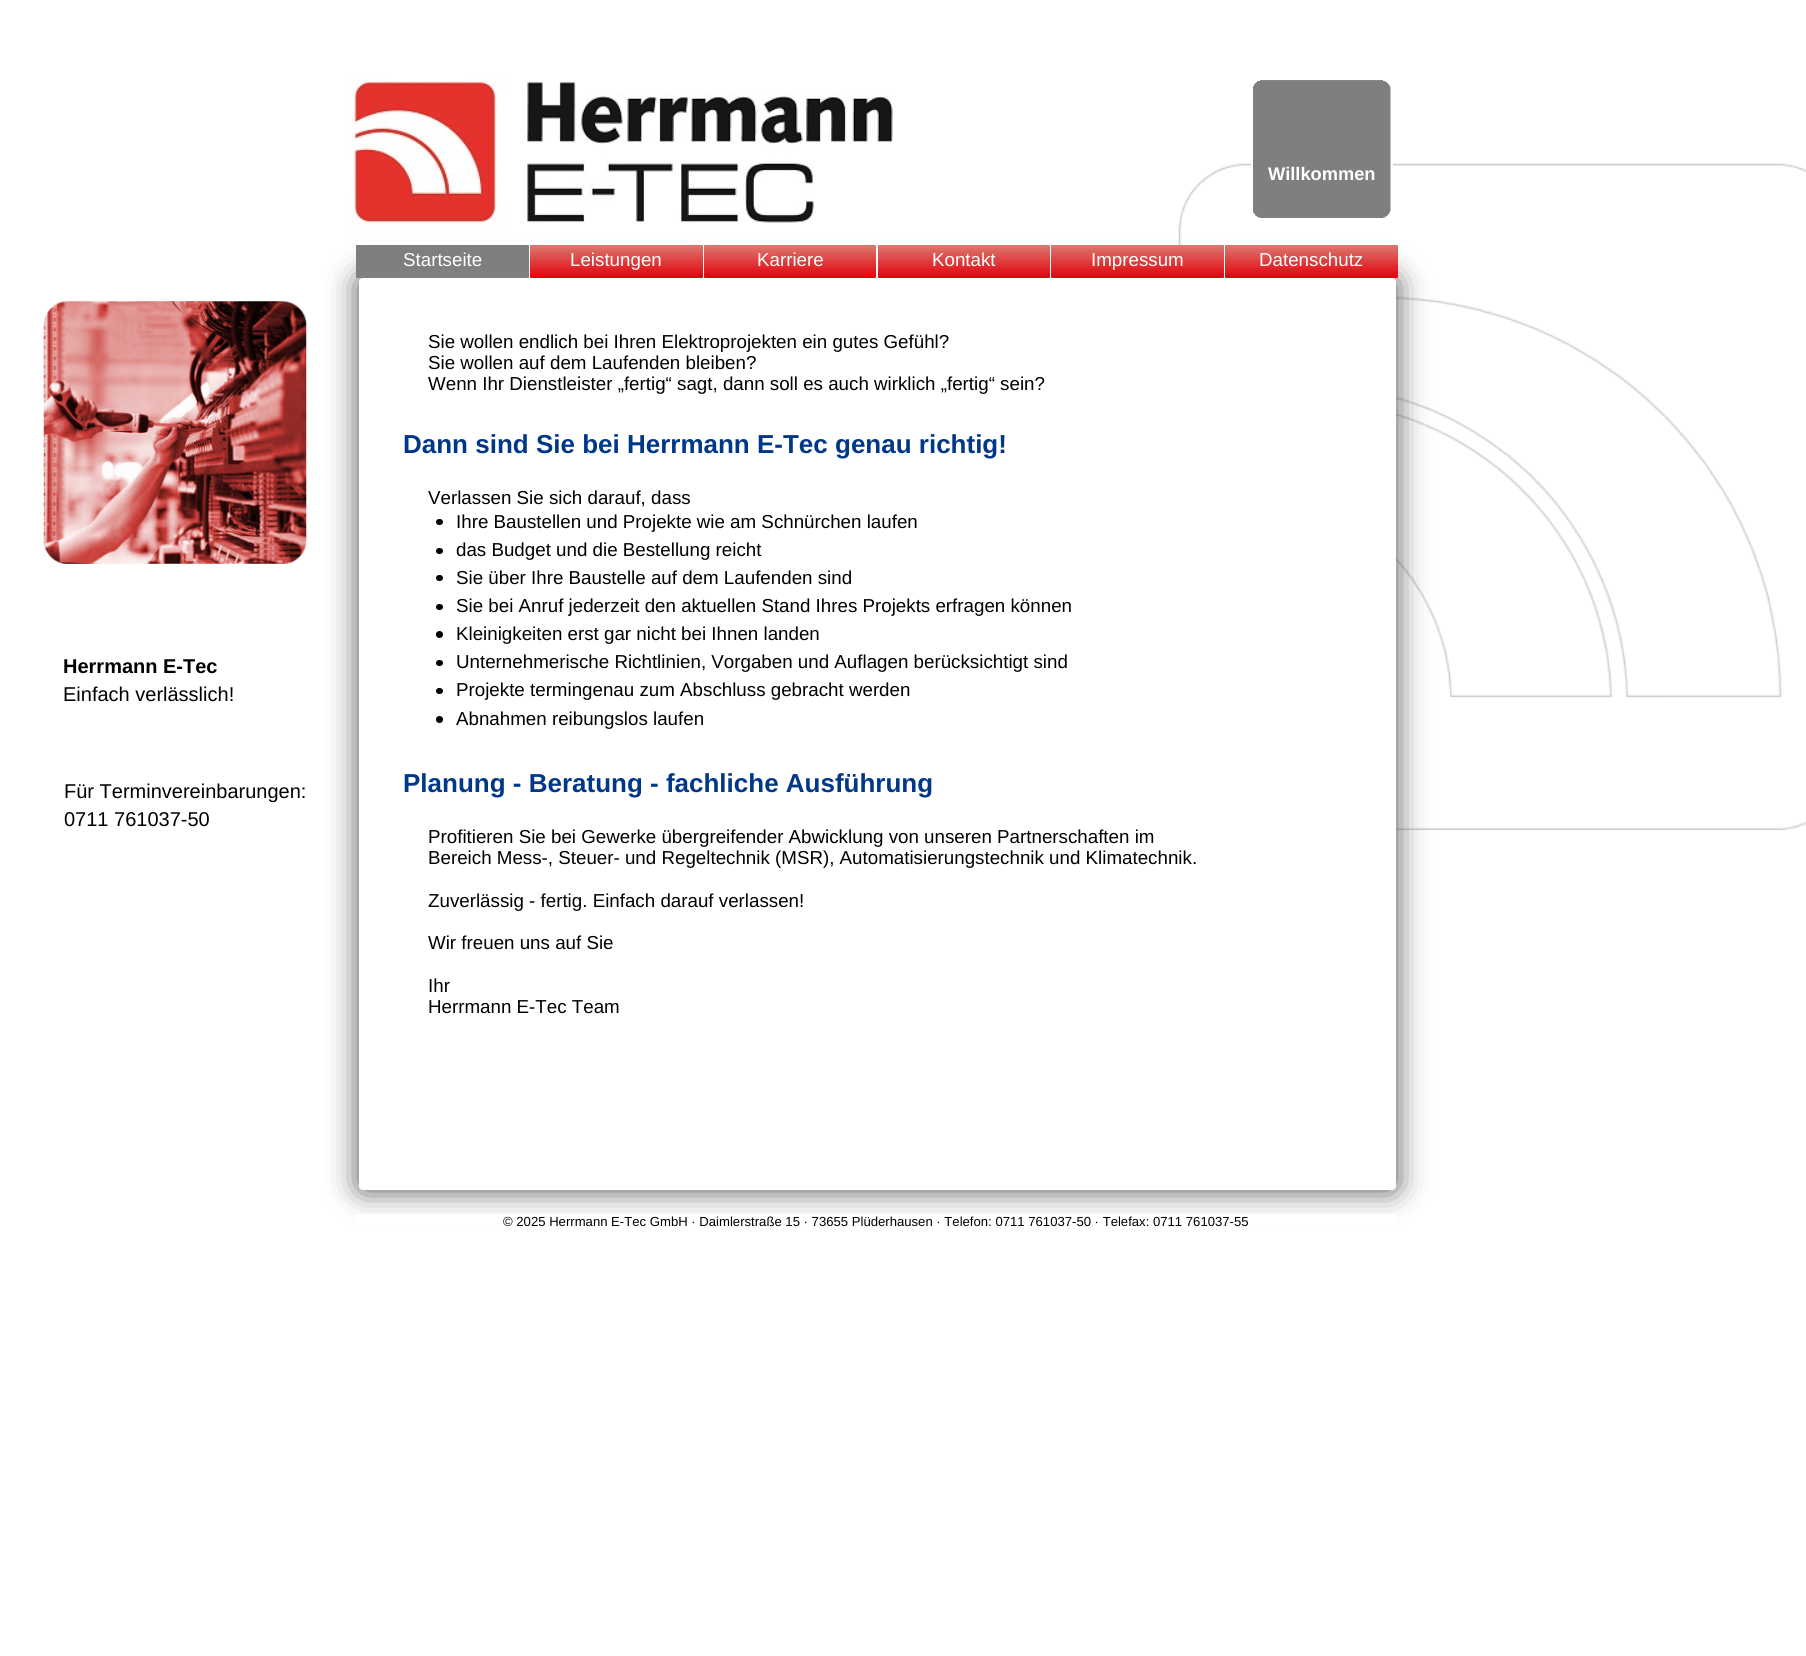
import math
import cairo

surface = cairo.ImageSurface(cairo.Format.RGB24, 1806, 1656)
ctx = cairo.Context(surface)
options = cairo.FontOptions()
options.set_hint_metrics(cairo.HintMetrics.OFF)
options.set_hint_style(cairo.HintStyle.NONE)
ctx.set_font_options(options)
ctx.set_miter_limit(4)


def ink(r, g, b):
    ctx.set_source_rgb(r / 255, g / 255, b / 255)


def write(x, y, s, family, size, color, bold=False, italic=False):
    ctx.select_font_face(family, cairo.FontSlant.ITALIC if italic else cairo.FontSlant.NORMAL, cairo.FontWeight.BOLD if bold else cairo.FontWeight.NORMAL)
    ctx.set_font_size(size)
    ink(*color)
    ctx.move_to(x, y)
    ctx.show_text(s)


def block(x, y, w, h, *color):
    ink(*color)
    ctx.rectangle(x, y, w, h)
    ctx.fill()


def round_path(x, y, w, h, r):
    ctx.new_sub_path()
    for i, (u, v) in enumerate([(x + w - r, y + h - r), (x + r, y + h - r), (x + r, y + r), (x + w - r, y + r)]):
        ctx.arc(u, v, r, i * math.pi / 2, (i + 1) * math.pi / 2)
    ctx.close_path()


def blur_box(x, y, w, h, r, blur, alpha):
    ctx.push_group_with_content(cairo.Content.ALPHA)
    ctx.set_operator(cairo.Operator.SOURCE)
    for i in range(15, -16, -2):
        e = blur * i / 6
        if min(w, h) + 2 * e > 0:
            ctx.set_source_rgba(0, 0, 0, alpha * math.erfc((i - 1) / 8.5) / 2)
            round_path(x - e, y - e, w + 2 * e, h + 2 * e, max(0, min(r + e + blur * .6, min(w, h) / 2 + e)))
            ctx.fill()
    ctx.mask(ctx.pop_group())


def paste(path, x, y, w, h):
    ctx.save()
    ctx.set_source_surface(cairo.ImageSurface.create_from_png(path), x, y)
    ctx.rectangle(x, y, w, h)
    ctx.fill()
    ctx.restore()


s1 = dict(family="Liberation Sans", size=18.25, color=(255, 255, 255), bold=True)
s2 = dict(family="Liberation Sans", size=18.75, color=(255, 255, 255))
s3 = dict(family="Liberation Sans", size=18.75, color=(0, 0, 0))
s4 = dict(family="Liberation Sans", size=26, color=(0, 55, 135), bold=True)
s5 = dict(family="Liberation Sans", size=20, color=(0, 0, 0), bold=True)
s6 = dict(family="Liberation Sans", size=20, color=(0, 0, 0))
s7 = dict(family="Liberation Sans", size=13.12, color=(0, 0, 0))

ink(255, 255, 255)
ctx.paint()
paste("pic1.png", 345, 73, 548, 160)
paste("pic3.png", 1178, 163, 628, 667)
block(1251, 163, 142, 4, 255, 255, 255)
paste("pic2.png", 1253, 80, 138, 138)
write(1268, 180, "Willkommen", **s1)
ink(80, 80, 80)
blur_box(359, 278, 1037, 912, 4, 15.5, 1)
block(356, 245, 1042, 33, 255, 255, 255)
ink(127, 127, 127)
round_path(356, 245, 173, 33, 1)
ctx.fill()
write(403, 266, "Startseite", **s2)
gradient = cairo.LinearGradient(616, 245, 616, 278)
gradient.add_color_stop_rgba(0, 0.863, 0.475, 0.439, 1)
gradient.add_color_stop_rgba(1, 0.89, 0, 0.043, 1)
ctx.set_source(gradient)
round_path(530, 245, 173, 33, 1)
ctx.fill()
write(570, 266, "Leistungen", **s2)
gradient = cairo.LinearGradient(790, 245, 790, 278)
gradient.add_color_stop_rgba(0, 0.863, 0.475, 0.439, 1)
gradient.add_color_stop_rgba(1, 0.89, 0, 0.043, 1)
ctx.set_source(gradient)
round_path(704, 245, 172, 33, 1)
ctx.fill()
write(757, 266, "Karriere", **s2)
gradient = cairo.LinearGradient(964, 245, 964, 278)
gradient.add_color_stop_rgba(0, 0.863, 0.475, 0.439, 1)
gradient.add_color_stop_rgba(1, 0.89, 0, 0.043, 1)
ctx.set_source(gradient)
round_path(878, 245, 172, 33, 1)
ctx.fill()
write(932, 266, "Kontakt", **s2)
gradient = cairo.LinearGradient(1138, 245, 1138, 278)
gradient.add_color_stop_rgba(0, 0.863, 0.475, 0.439, 1)
gradient.add_color_stop_rgba(1, 0.89, 0, 0.043, 1)
ctx.set_source(gradient)
round_path(1051, 245, 173, 33, 1)
ctx.fill()
write(1091, 266, "Impressum", **s2)
gradient = cairo.LinearGradient(1311, 245, 1311, 278)
gradient.add_color_stop_rgba(0, 0.863, 0.475, 0.439, 1)
gradient.add_color_stop_rgba(1, 0.89, 0, 0.043, 1)
ctx.set_source(gradient)
round_path(1225, 245, 173, 33, 1)
ctx.fill()
write(1259, 266, "Datenschutz", **s2)
paste("pic4.png", 43, 301, 264, 263)
round_path(359, 278, 1037, 912, 4)
ctx.fill()
write(428, 348, "Sie wollen endlich bei Ihren Elektroprojekten ein gutes Gefühl?", **s3)
write(428, 369, "Sie wollen auf dem Laufenden bleiben?", **s3)
write(428, 390, "Wenn Ihr Dienstleister „fertig“ sagt, dann soll es auch wirklich „fertig“ sein?", **s3)
write(403, 453, "Dann sind Sie bei Herrmann E-Tec genau richtig!", **s4)
write(428, 504, "Verlassen Sie sich darauf, dass", **s3)
round_path(436, 519, 7, 6, 3)
ctx.fill()
write(456, 528, "Ihre Baustellen und Projekte wie am Schnürchen laufen", **s3)
round_path(436, 548, 7, 6, 3)
ctx.fill()
write(456, 556, "das Budget und die Bestellung reicht", **s3)
round_path(436, 575, 7, 6, 3)
ctx.fill()
write(456, 584, "Sie über Ihre Baustelle auf dem Laufenden sind", **s3)
round_path(436, 604, 7, 6, 3)
ctx.fill()
write(456, 612, "Sie bei Anruf jederzeit den aktuellen Stand Ihres Projekts erfragen können", **s3)
ctx.new_path()
ctx.arc(439.5, 634.5, 3.5, 0, 2 * math.pi)
ctx.fill()
write(456, 640, "Kleinigkeiten erst gar nicht bei Ihnen landen", **s3)
round_path(436, 660, 7, 6, 3)
ctx.fill()
write(456, 668, "Unternehmerische Richtlinien, Vorgaben und Auflagen berücksichtigt sind", **s3)
round_path(436, 688, 7, 6, 3)
ctx.fill()
write(456, 696, "Projekte termingenau zum Abschluss gebracht werden", **s3)
ctx.new_path()
ctx.arc(439.5, 719.5, 3.5, 0, 2 * math.pi)
ctx.fill()
write(456, 725, "Abnahmen reibungslos laufen", **s3)
write(403, 792, "Planung - Beratung - fachliche Ausführung", **s4)
write(428, 843, "Profitieren Sie bei Gewerke übergreifender Abwicklung von unseren Partnerschaften im", **s3)
write(428, 864, "Bereich Mess-, Steuer- und Regeltechnik (MSR), Automatisierungstechnik und Klimatechnik.", **s3)
write(428, 907, "Zuverlässig - fertig. Einfach darauf verlassen!", **s3)
write(428, 949, "Wir freuen uns auf Sie", **s3)
write(428, 992, "Ihr", **s3)
write(428, 1013, "Herrmann E-Tec Team", **s3)
write(63, 673, "Herrmann E-Tec", **s5)
write(63, 701, "Einfach verlässlich!", **s6)
write(64, 798, "Für Terminvereinbarungen:", **s6)
write(64, 826, "0711 761037-50", **s6)
block(356, 1214, 1040, 10, 255, 255, 255)
write(503, 1226, "© 2025 Herrmann E-Tec GmbH · Daimlerstraße 15 · 73655 Plüderhausen · Telefon: 0711 761037-50 · Telefax: 0711 761037-55", **s7)
surface.write_to_png("screenshot.png")
